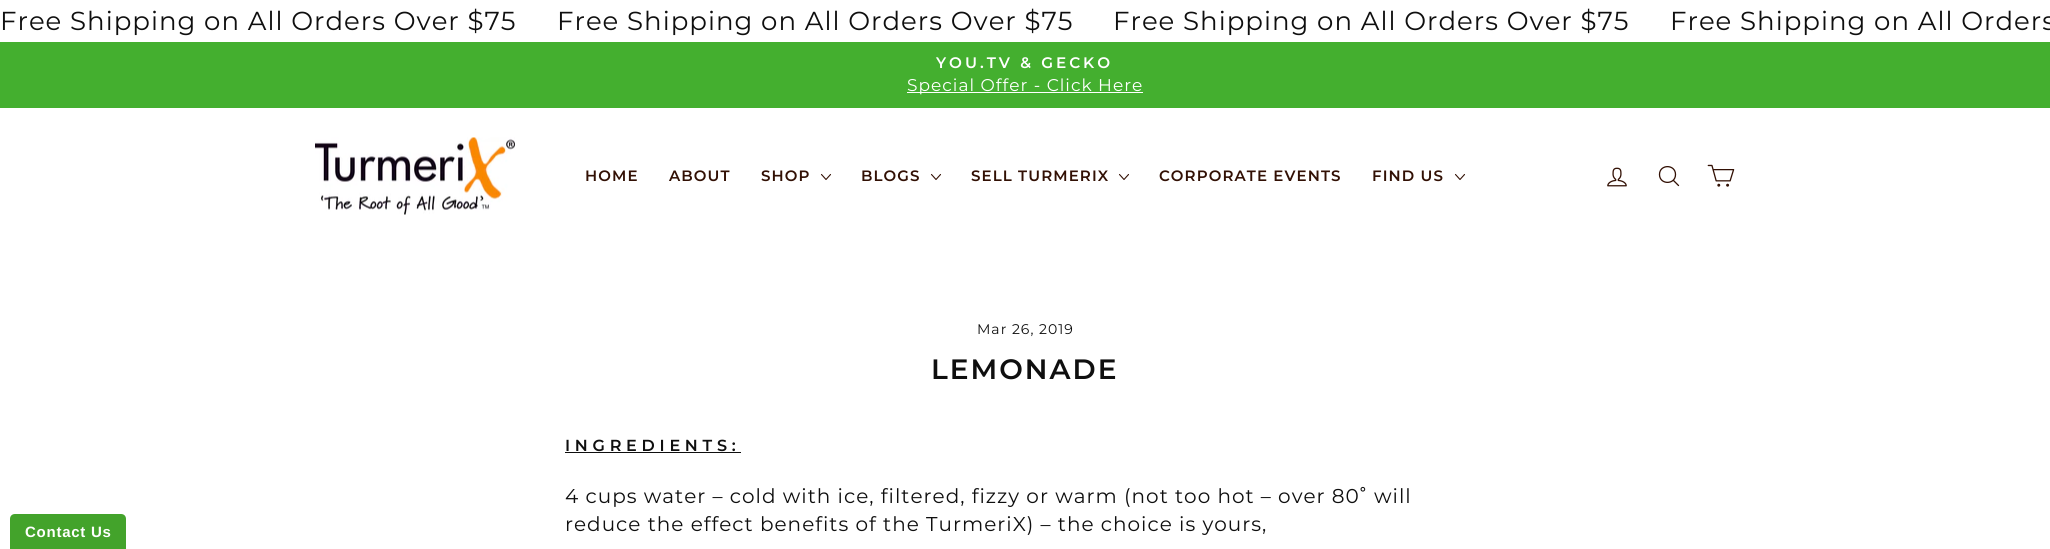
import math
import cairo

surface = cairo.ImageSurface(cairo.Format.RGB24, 2050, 549)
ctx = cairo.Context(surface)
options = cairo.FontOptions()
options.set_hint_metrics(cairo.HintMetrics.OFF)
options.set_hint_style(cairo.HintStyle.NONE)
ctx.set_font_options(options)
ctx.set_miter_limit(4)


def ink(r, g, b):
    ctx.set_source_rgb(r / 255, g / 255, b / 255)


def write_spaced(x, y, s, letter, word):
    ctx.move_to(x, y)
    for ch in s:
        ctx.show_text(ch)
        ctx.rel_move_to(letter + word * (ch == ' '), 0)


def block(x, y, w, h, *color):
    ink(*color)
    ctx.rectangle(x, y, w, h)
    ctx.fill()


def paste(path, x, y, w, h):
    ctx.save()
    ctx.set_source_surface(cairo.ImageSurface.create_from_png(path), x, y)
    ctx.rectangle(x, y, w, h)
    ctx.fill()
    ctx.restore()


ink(255, 255, 255)
ctx.paint()
ctx.select_font_face("Montserrat")
ctx.set_font_size(26)
ink(15, 15, 15)
write_spaced(0, 30, "Free Shipping on All Orders Over $75", 1, 0)
write_spaced(557, 30, "Free Shipping on All Orders Over $75", 1, 0)
write_spaced(1113, 30, "Free Shipping on All Orders Over $75", 1, 0)
write_spaced(1670, 30, "Free Shipping on All Orders", 1, 0)
block(0, 42, 2050, 66, 68, 175, 47)
ctx.select_font_face("Montserrat SemiBold")
ctx.set_font_size(15.25)
ink(255, 255, 255)
write_spaced(936, 68, "YOU.TV & GECKO", 3, 0)
block(907, 92, 236, 1, 255, 255, 255)
ctx.select_font_face("Montserrat")
ctx.set_font_size(17)
write_spaced(907, 91, "Special Offer - Click Here", 1, 0)
paste("pic1.png", 315, 137, 200, 78)
ctx.select_font_face("Montserrat SemiBold")
ctx.set_font_size(15)
ink(50, 16, 4)
write_spaced(585, 181, "HOME", 1.1, 0)
write_spaced(669, 181, "ABOUT", 1.1, 0)
write_spaced(761, 181, "SHOP", 1.1, 0)
ctx.new_path()
ctx.move_to(821.5, 174.5)
ctx.line_to(826, 179.5)
ctx.line_to(830.5, 174.5)
ctx.set_line_width(1.1)
ctx.set_line_cap(cairo.LineCap.ROUND)
ctx.set_line_join(cairo.LineJoin.ROUND)
ctx.stroke()
write_spaced(861, 181, "BLOGS", 1.1, 0)
ctx.new_path()
ctx.move_to(931.5, 174.5)
ctx.line_to(936, 179.5)
ctx.line_to(940.5, 174.5)
ctx.stroke()
write_spaced(971, 181, "SELL TURMERIX", 1.1, 0)
ctx.new_path()
ctx.move_to(1119.5, 174.5)
ctx.line_to(1124, 179.5)
ctx.line_to(1128.5, 174.5)
ctx.stroke()
write_spaced(1159, 181, "CORPORATE EVENTS", 1.1, 0)
write_spaced(1372, 181, "FIND US", 1.1, 0)
ctx.new_path()
ctx.move_to(1455.5, 174.5)
ctx.line_to(1460, 179.5)
ctx.line_to(1464.5, 174.5)
ctx.stroke()
paste("pic2.png", 1607, 167, 20, 20)
ctx.new_path()
ctx.move_to(1675.5, 174.5)
ctx.curve_to(1675.5, 185, 1659.5, 185, 1659.5, 174.5)
ctx.curve_to(1659.5, 164, 1675.5, 164, 1675.5, 174.5)
ctx.close_path()
ctx.move_to(1678.5, 185.5)
ctx.line_to(1673.5, 180.5)
ctx.set_line_width(1.3)
ctx.stroke()
paste("pic3.png", 1707, 164, 28, 23)
ctx.select_font_face("Montserrat")
ctx.set_font_size(14)
ink(15, 15, 15)
write_spaced(977, 334, "Mar 26, 2019", 1, 0)
ctx.select_font_face("Montserrat SemiBold")
ctx.set_font_size(28)
write_spaced(931, 379, "LEMONADE", 2, 0)
ctx.set_font_size(16)
write_spaced(565, 451, "INGREDIENTS:", 4.75, 0)
block(565, 452, 176, 1, 15, 15, 15)
ctx.select_font_face("Montserrat")
ctx.set_font_size(20)
write_spaced(565, 503, "4 cups water – cold with ice, filtered, fizzy or warm (not too hot – over 80", 1, 0)
ctx.select_font_face("Liberation Sans")
write_spaced(1360, 503, "˚", 1, 0)
ctx.select_font_face("Montserrat")
write_spaced(1374, 503, "will", 1, 0)
write_spaced(565, 531, "reduce the effect benefits of the TurmeriX) – the choice is yours,", 1, 0)
ink(67, 163, 43)
ctx.new_path()
ctx.move_to(15, 514)
ctx.line_to(121, 514)
ctx.curve_to(124, 514, 126, 516, 126, 519)
ctx.line_to(126, 549)
ctx.line_to(10, 549)
ctx.line_to(10, 519)
ctx.curve_to(10, 516, 12, 514, 15, 514)
ctx.close_path()
ctx.fill()
ctx.select_font_face("Liberation Sans", cairo.FontSlant.NORMAL, cairo.FontWeight.BOLD)
ctx.set_font_size(15)
ink(255, 255, 255)
write_spaced(25, 537, "Contact Us", 0.75, 0)
surface.write_to_png("screenshot.png")
